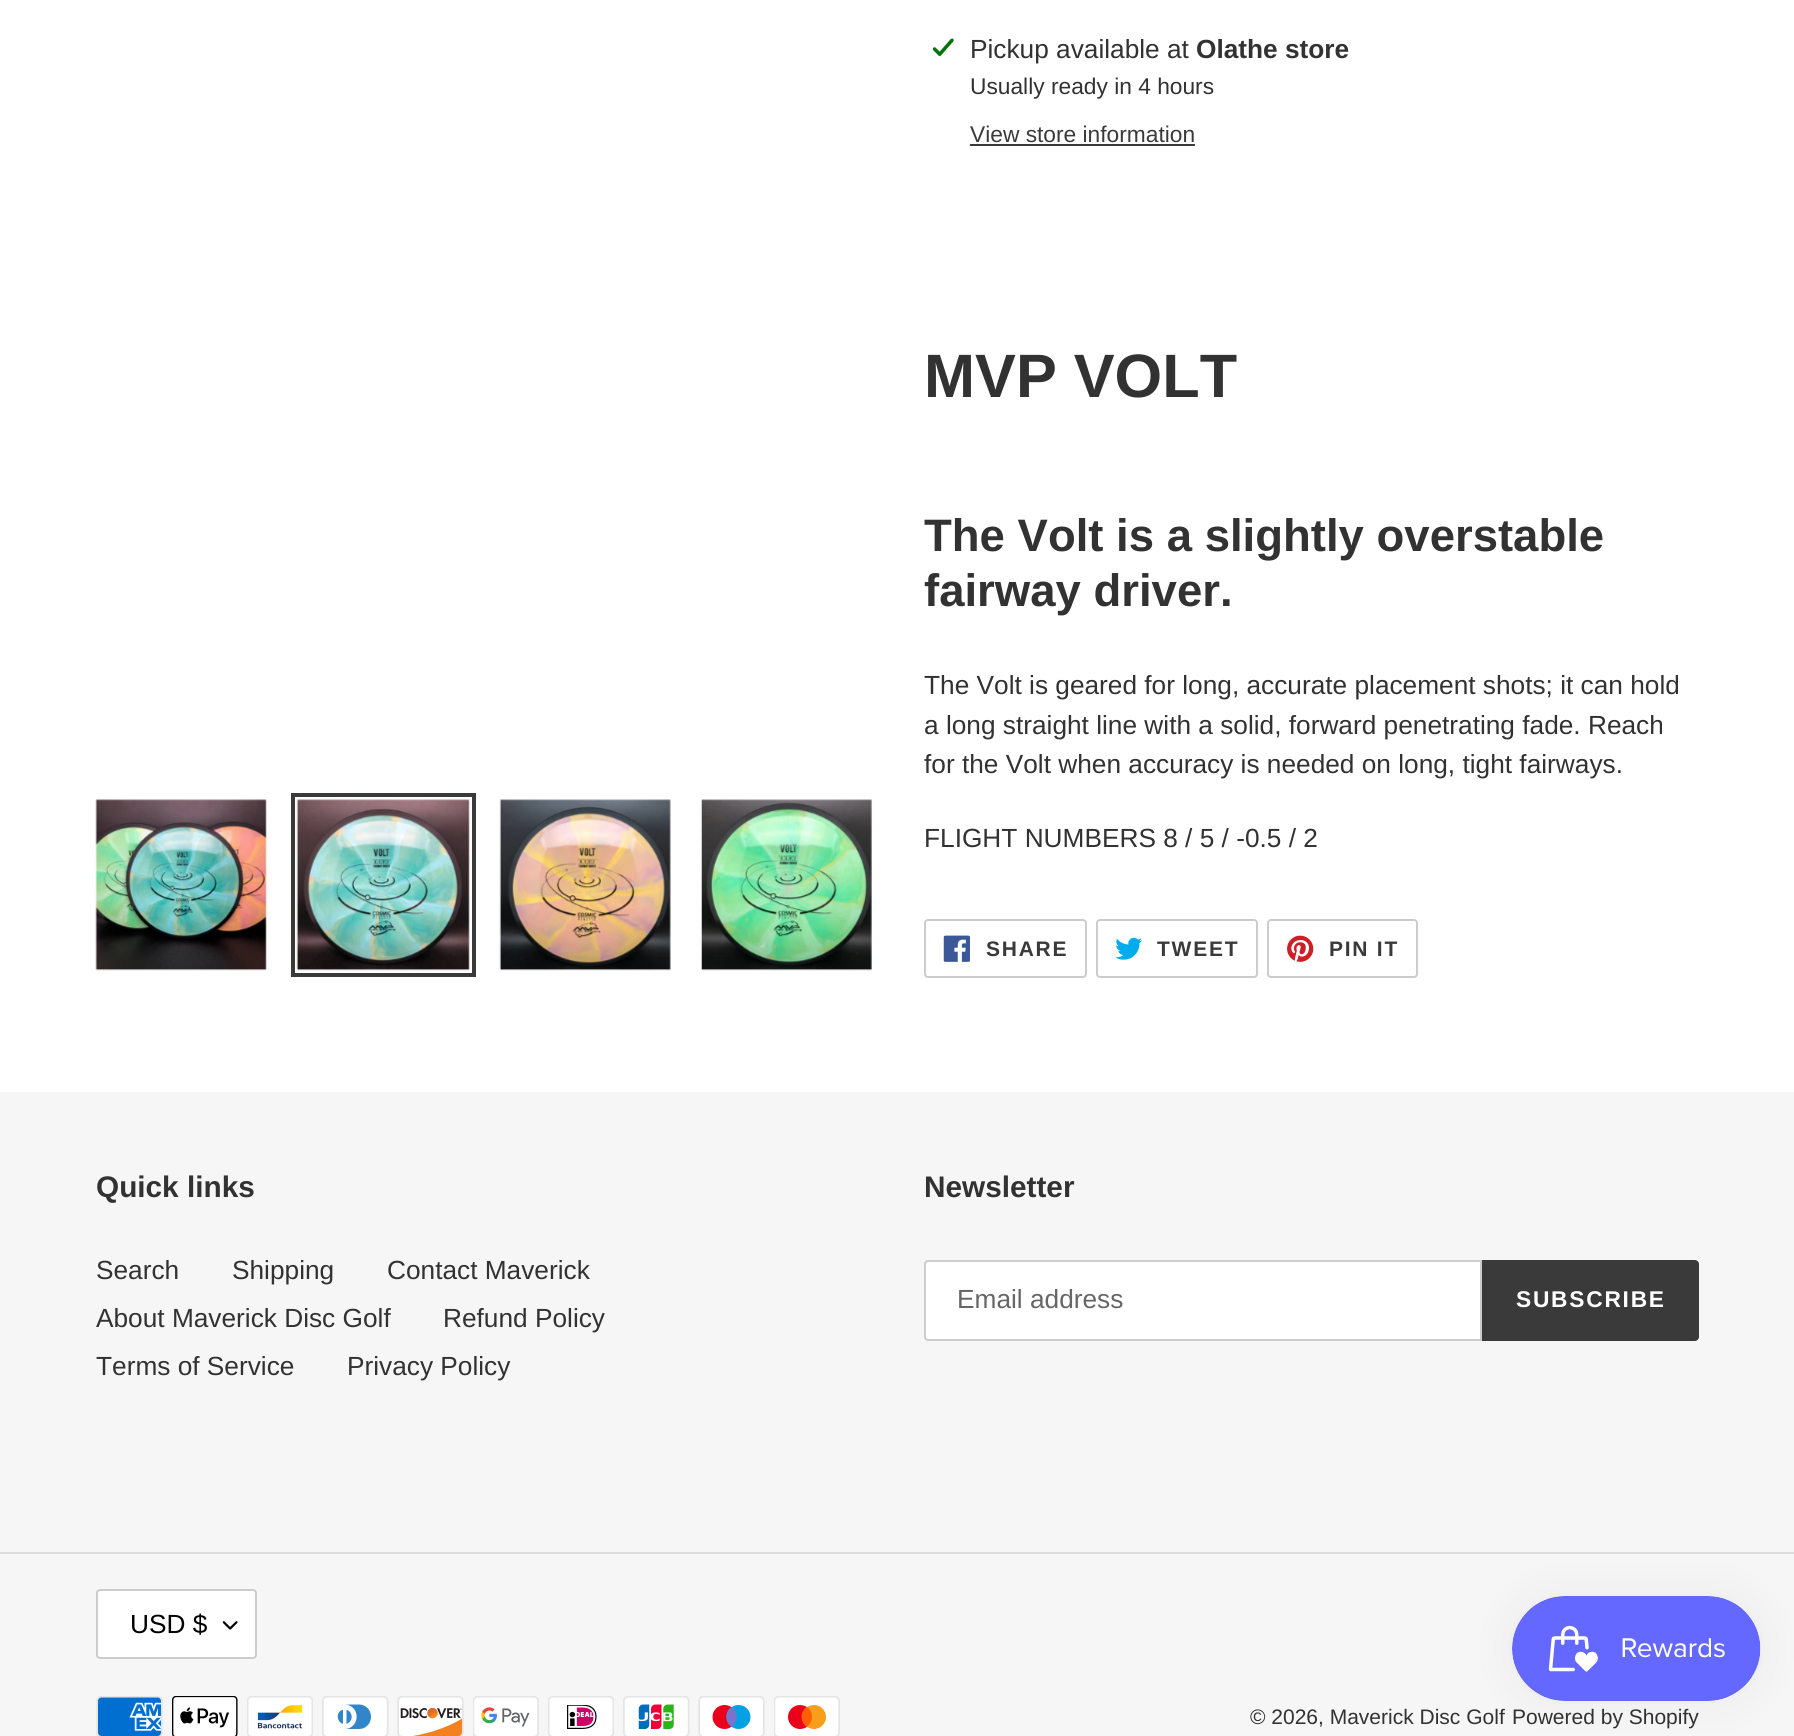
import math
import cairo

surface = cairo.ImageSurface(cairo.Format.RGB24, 1794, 1736)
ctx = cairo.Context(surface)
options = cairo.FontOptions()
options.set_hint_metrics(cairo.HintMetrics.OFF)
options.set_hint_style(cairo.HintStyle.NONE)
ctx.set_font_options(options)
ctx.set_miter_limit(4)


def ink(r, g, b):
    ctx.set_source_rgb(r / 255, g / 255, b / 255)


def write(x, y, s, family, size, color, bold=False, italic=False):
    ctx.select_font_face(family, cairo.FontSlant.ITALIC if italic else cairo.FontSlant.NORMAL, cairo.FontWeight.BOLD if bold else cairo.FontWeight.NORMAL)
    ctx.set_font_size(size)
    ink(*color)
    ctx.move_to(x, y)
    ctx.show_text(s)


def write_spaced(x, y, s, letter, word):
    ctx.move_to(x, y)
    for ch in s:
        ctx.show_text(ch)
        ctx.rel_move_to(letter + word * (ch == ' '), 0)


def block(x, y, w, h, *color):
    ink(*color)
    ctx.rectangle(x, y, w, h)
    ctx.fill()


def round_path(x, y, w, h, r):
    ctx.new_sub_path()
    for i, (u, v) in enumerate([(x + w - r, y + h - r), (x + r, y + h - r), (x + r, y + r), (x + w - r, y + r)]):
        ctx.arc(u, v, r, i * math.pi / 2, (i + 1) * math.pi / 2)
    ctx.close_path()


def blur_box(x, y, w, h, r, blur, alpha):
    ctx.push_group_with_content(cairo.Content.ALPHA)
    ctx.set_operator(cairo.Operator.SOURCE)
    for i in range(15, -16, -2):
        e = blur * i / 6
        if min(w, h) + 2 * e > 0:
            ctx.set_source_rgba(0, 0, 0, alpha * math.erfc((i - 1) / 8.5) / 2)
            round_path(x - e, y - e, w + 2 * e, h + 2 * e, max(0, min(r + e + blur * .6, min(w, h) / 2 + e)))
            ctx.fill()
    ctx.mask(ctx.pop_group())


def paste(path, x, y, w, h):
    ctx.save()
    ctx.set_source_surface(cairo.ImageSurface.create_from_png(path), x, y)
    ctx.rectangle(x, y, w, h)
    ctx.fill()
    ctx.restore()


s1 = dict(family="Liberation Sans", size=26.25, color=(51, 50, 50))
s2 = dict(family="Liberation Sans", size=26.25, color=(51, 50, 50), bold=True)
s3 = dict(family="Liberation Sans", size=22.75, color=(51, 50, 50))
s4 = dict(family="Liberation Sans", size=22.75, color=(58, 58, 58))
s5 = dict(family="Liberation Sans", size=61.25, color=(51, 50, 50), bold=True)
s6 = dict(family="Liberation Sans", size=45.5, color=(51, 50, 50), bold=True)
s7 = dict(family="Liberation Sans", size=29.75, color=(51, 50, 50), bold=True)
s8 = dict(family="Liberation Sans", size=26.25, color=(102, 102, 102))
s9 = dict(family="Liberation Sans", size=26.25, color=(0, 0, 0))
s10 = dict(family="Liberation Sans", size=21, color=(51, 50, 50))

ink(255, 255, 255)
ctx.paint()
paste("pic1.png", 95, 799, 172, 172)
ctx.rectangle(293, 795, 181, 180)
ink(58, 58, 58)
ctx.set_line_width(4)
ctx.stroke()
paste("pic2.png", 296, 799, 174, 172)
paste("pic3.png", 499, 799, 172, 172)
paste("pic4.png", 701, 799, 171, 172)
paste("pic5.png", 933, 38, 21, 18)
write(970, 58, "Pickup available at", **s1)
write(1196, 58, "Olathe store", **s2)
write(970, 94, "Usually ready in 4 hours", **s3)
write(970, 142, "View store information", **s4)
block(970, 144, 225, 2, 58, 58, 58)
write(924, 397, "MVP VOLT", **s5)
write(924, 551, "The Volt is a slightly overstable", **s6)
write(924, 606, "fairway driver.", **s6)
write(924, 694, "The Volt is geared for long, accurate placement shots; it can hold", **s1)
write(924, 734, "a long straight line with a solid, forward penetrating fade. Reach", **s1)
write(924, 773, "for the Volt when accuracy is needed on long, tight fairways.", **s1)
write(924, 847, "FLIGHT NUMBERS 8 / 5 / -0.5 / 2", **s1)
round_path(925, 920, 161, 57, 3)
ink(204, 204, 204)
ctx.set_line_width(2)
ctx.stroke()
paste("pic6.png", 943, 935, 27, 27)
ctx.select_font_face("Liberation Sans", cairo.FontSlant.NORMAL, cairo.FontWeight.BOLD)
ctx.set_font_size(21)
ink(58, 58, 58)
write_spaced(986, 956, "SHARE", 1.75, 0)
round_path(1097, 920, 160, 57, 3)
ink(204, 204, 204)
ctx.stroke()
paste("pic7.png", 1115, 937, 27, 23)
ink(58, 58, 58)
write_spaced(1157, 956, "TWEET", 1.75, 0)
round_path(1268, 920, 149, 57, 3)
ink(204, 204, 204)
ctx.stroke()
paste("pic8.png", 1287, 935, 27, 27)
ink(58, 58, 58)
write_spaced(1329, 956, "PIN IT", 1.75, 0)
block(0, 1092, 1794, 644, 246, 246, 246)
write(96, 1197, "Quick links", **s7)
write(96, 1279, "Search", **s1)
write(232, 1279, "Shipping", **s1)
write(387, 1279, "Contact Maverick", **s1)
write(96, 1327, "About Maverick Disc Golf", **s1)
write(443, 1327, "Refund Policy", **s1)
write(96, 1375, "Terms of Service", **s1)
write(347, 1375, "Privacy Policy", **s1)
write(924, 1197, "Newsletter", **s7)
ink(255, 255, 255)
ctx.new_path()
ctx.move_to(928, 1261)
ctx.line_to(1481, 1261)
ctx.line_to(1481, 1340)
ctx.line_to(928, 1340)
ctx.curve_to(926.5, 1340, 925, 1338.5, 925, 1337)
ctx.line_to(925, 1264)
ctx.curve_to(925, 1262.5, 926.5, 1261, 928, 1261)
ctx.close_path()
ctx.fill_preserve()
ink(204, 204, 204)
ctx.stroke()
write(957, 1308, "Email address", **s8)
ink(58, 58, 58)
ctx.new_path()
ctx.move_to(1482, 1260)
ctx.line_to(1695, 1260)
ctx.curve_to(1697, 1260, 1699, 1262, 1699, 1264)
ctx.line_to(1699, 1337)
ctx.curve_to(1699, 1339, 1697, 1341, 1695, 1341)
ctx.line_to(1482, 1341)
ctx.close_path()
ctx.fill()
ctx.select_font_face("Liberation Sans", cairo.FontSlant.NORMAL, cairo.FontWeight.BOLD)
ctx.set_font_size(22.75)
ink(255, 255, 255)
write_spaced(1516, 1307, "SUBSCRIBE", 1.75, 0)
block(0, 1552, 1794, 2, 221, 221, 221)
ink(255, 255, 255)
round_path(96, 1589, 161, 70, 4)
ctx.fill()
paste("pic9.png", 222, 1621, 16, 9)
round_path(97, 1590, 159, 68, 3)
ink(204, 204, 204)
ctx.stroke()
write(130, 1633, "USD $", **s9)
paste("pic10.png", 96, 1696, 67, 40)
paste("pic11.png", 172, 1696, 66, 40)
paste("pic12.png", 247, 1696, 66, 40)
paste("pic13.png", 322, 1696, 67, 40)
paste("pic14.png", 397, 1696, 67, 40)
paste("pic15.png", 473, 1696, 66, 40)
paste("pic16.png", 548, 1696, 66, 40)
paste("pic17.png", 623, 1696, 67, 40)
paste("pic18.png", 698, 1696, 67, 40)
paste("pic19.png", 774, 1696, 66, 40)
write(1250, 1724, "© 2026, Maverick Disc Golf", **s10)
write(1512, 1724, "Powered by Shopify", **s10)
ink(0, 0, 0)
blur_box(1512, 1596, 249, 105, 52.5, 22, 0.05)
paste("pic20.png", 1512, 1596, 249, 105)
surface.write_to_png("screenshot.png")
